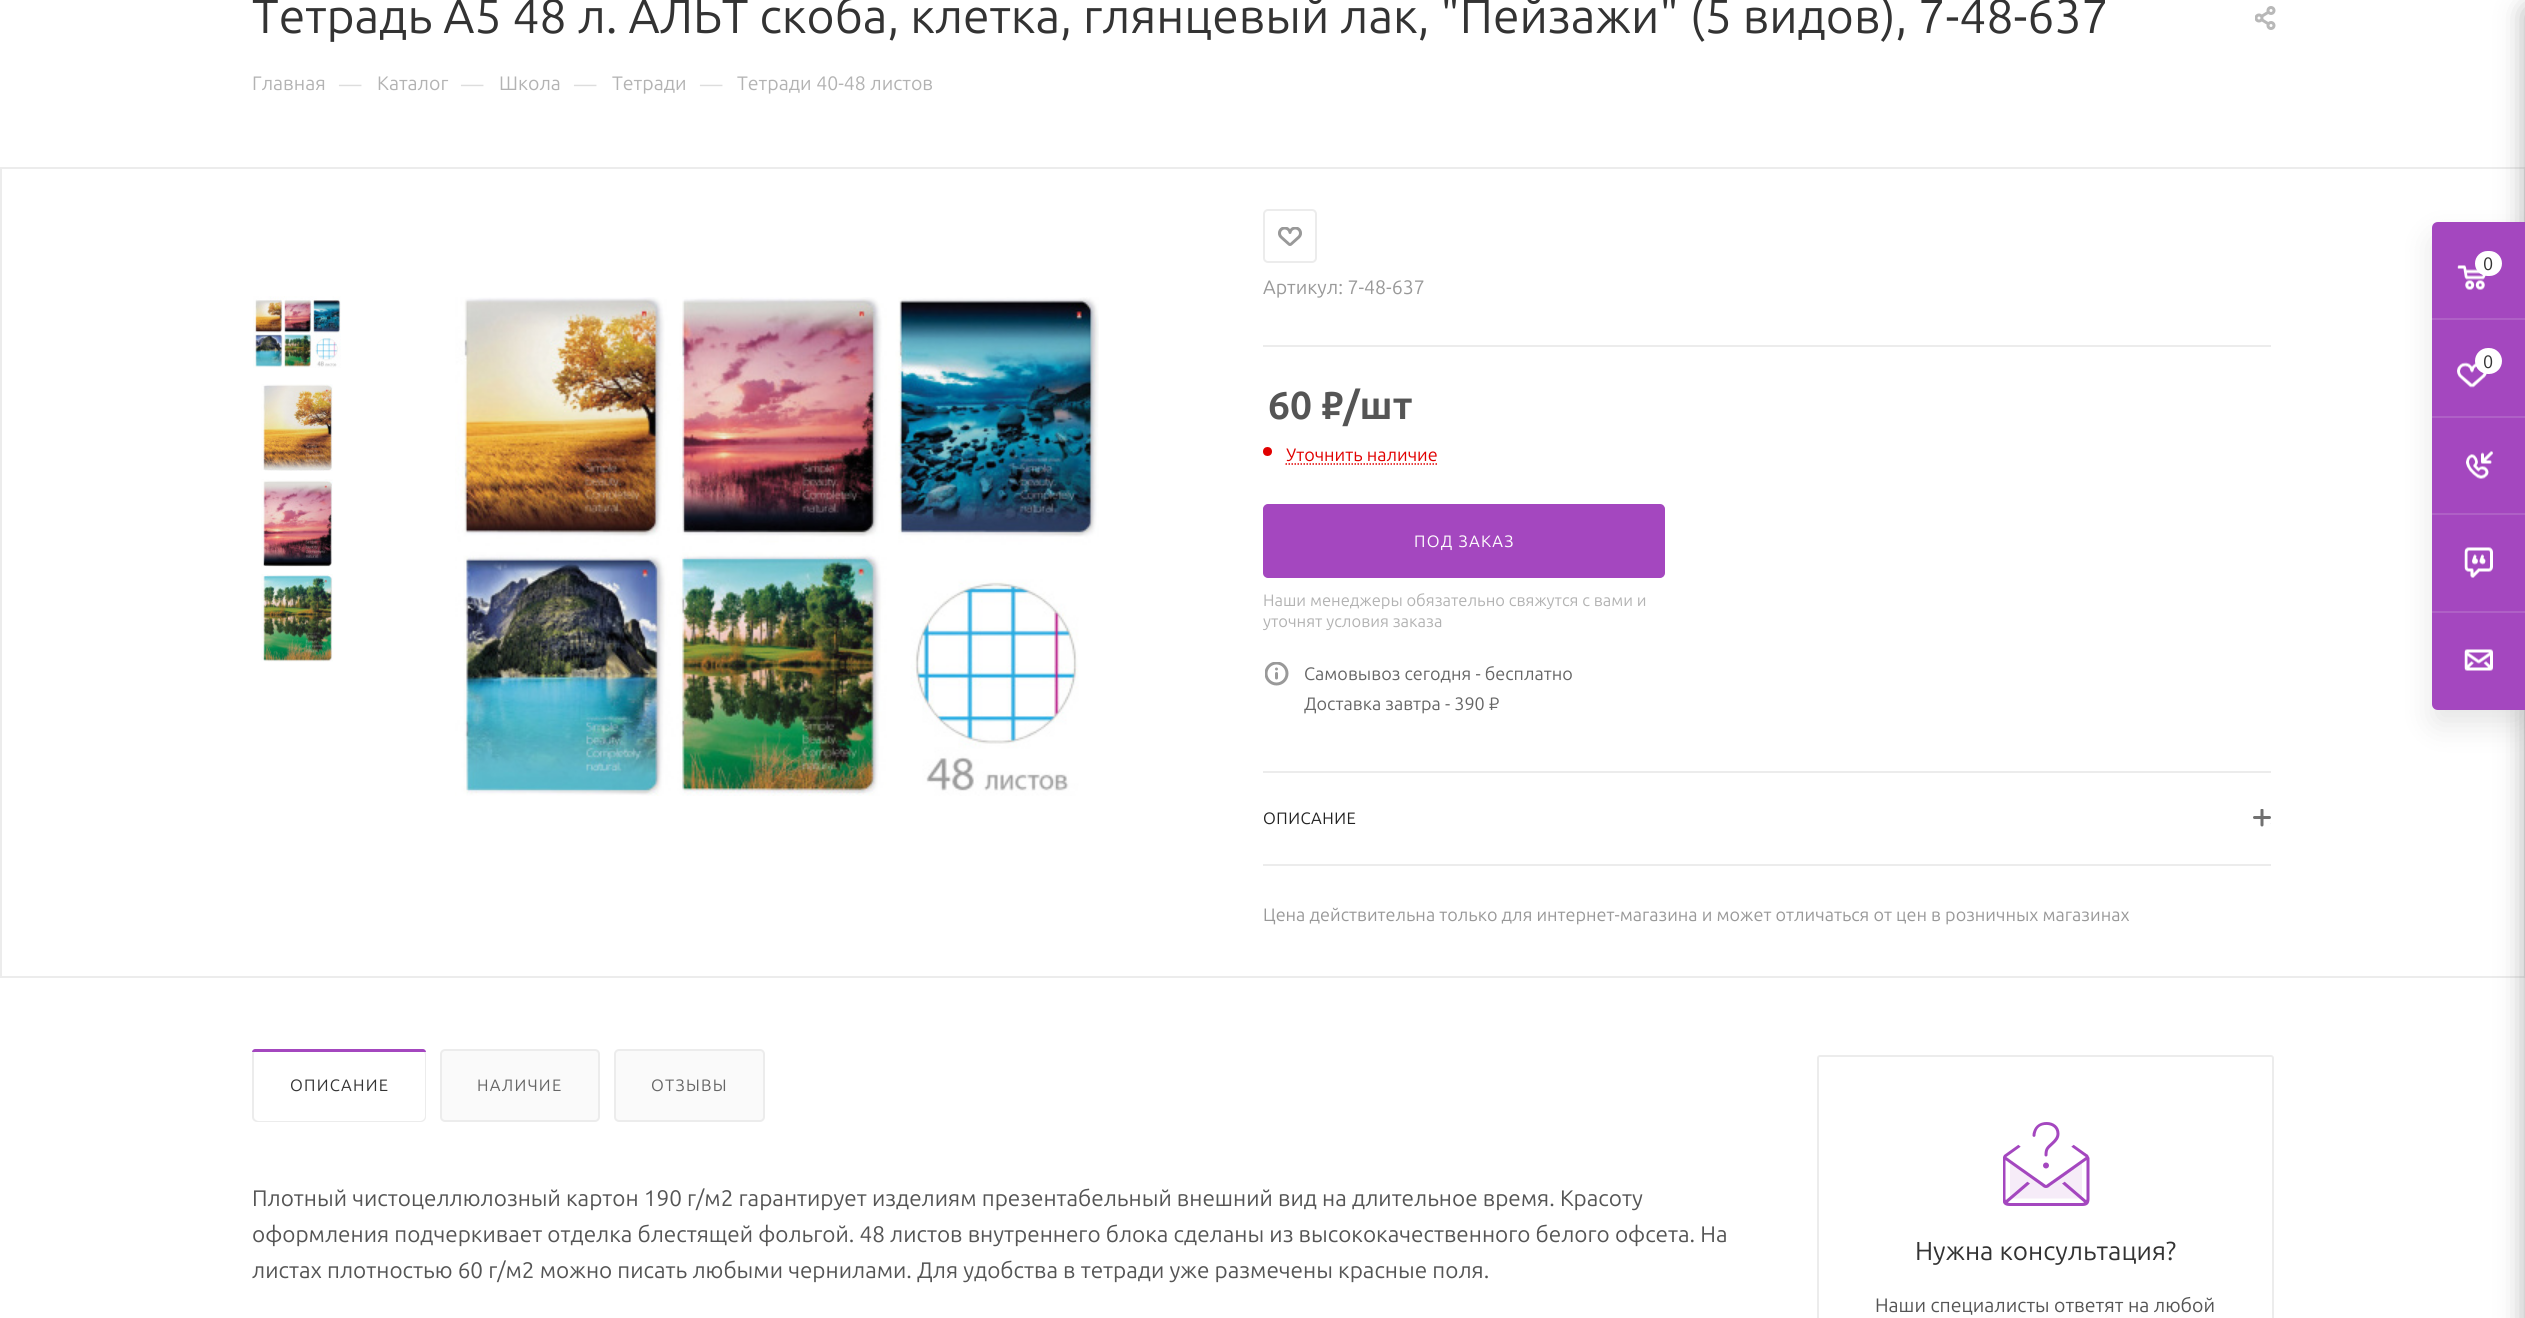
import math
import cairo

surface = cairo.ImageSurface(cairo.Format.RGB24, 2525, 1318)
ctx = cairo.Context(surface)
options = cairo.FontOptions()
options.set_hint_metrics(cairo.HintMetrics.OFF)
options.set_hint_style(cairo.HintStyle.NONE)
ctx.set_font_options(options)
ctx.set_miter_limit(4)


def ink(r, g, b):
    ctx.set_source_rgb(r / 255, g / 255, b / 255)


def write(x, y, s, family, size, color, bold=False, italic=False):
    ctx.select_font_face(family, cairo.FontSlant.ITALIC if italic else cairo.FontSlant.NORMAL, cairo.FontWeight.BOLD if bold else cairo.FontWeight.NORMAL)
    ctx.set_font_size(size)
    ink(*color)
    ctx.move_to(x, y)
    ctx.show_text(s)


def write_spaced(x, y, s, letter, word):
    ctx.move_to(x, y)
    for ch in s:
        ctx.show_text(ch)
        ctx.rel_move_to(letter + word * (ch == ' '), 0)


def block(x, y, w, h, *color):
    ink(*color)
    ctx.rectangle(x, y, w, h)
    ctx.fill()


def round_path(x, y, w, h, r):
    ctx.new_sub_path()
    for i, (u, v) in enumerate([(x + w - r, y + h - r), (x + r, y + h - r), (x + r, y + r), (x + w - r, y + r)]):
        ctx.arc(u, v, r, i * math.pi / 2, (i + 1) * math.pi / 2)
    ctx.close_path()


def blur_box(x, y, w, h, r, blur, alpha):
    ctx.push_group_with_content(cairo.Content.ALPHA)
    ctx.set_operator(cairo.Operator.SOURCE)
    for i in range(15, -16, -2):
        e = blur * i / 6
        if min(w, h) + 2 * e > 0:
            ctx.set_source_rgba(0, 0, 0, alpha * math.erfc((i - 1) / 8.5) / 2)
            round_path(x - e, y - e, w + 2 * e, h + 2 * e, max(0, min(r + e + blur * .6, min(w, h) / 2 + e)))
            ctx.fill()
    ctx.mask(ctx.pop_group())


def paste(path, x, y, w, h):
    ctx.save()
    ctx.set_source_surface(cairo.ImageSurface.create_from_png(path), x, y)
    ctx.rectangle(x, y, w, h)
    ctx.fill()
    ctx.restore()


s1 = dict(family="Ubuntu", size=48, color=(51, 51, 51))
s2 = dict(family="Ubuntu", size=19.5, color=(179, 179, 179))
s3 = dict(family="Ubuntu", size=22.5, color=(221, 221, 221))
s4 = dict(family="Ubuntu", size=19.5, color=(153, 153, 153))
s5 = dict(family="Ubuntu", size=39, color=(85, 85, 85), bold=True)
s6 = dict(family="Ubuntu", size=18, color=(225, 0, 0))
s7 = dict(family="Ubuntu", size=16.5, color=(179, 179, 179))
s8 = dict(family="Ubuntu", size=18, color=(102, 102, 102))
s9 = dict(family="Ubuntu", size=18, color=(153, 153, 153))
s10 = dict(family="Ubuntu", size=22.5, color=(85, 85, 85))
s11 = dict(family="Ubuntu", size=26, color=(51, 51, 51))
s12 = dict(family="Ubuntu", size=19.5, color=(85, 85, 85))
s13 = dict(family="Ubuntu", size=18, color=(51, 51, 51))

ink(255, 255, 255)
ctx.paint()
write(252, 33, "Тетрадь А5 48 л. АЛЬТ скоба, клетка, глянцевый лак, \"Пейзажи\" (5 видов), 7-48-637", **s1)
paste("pic1.png", 2255, 6, 21, 24)
write(252, 90, "Главная", **s2)
write(339, 92, "—", **s3)
write(377, 90, "Каталог", **s2)
write(461, 92, "—", **s3)
write(499, 90, "Школа", **s2)
write(574, 92, "—", **s3)
write(612, 90, "Тетради", **s2)
write(700, 92, "—", **s3)
write(737, 90, "Тетради 40-48 листов", **s2)
ctx.rectangle(1, 168, 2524, 809)
ink(236, 236, 236)
ctx.stroke()
paste("pic2.png", 253, 296, 88, 72)
paste("pic3.png", 261, 384, 72, 87)
paste("pic4.png", 261, 479, 72, 88)
paste("pic5.png", 261, 574, 72, 88)
paste("pic6.png", 455, 297, 644, 499)
round_path(1264, 210, 52, 52, 4)
ctx.stroke()
paste("pic7.png", 1278, 227, 24, 19)
write(1263, 294, "Артикул: 7-48-637", **s4)
block(1263, 345, 1008, 2, 236, 236, 236)
write(1268, 419, "60 ₽/шт", **s5)
ink(225, 0, 0)
ctx.new_path()
ctx.arc(1267.5, 451.5, 4.5, 0, 2 * math.pi)
ctx.fill()
write(1286, 461, "Уточнить наличие", **s6)
ctx.new_path()
ctx.move_to(1285.5, 464)
ctx.line_to(1437, 464)
ctx.set_line_width(1.5)
ctx.set_dash([1.5, 1.5])
ctx.stroke()
ink(164, 71, 191)
round_path(1264, 505, 400, 72, 4)
ctx.fill_preserve()
ctx.set_line_width(2)
ctx.set_dash([])
ctx.stroke()
ctx.set_font_size(16.5)
ink(255, 255, 255)
write_spaced(1414, 547, "ПОД ЗАКАЗ", 1.25, 0)
write(1263, 606, "Наши менеджеры обязательно свяжутся с вами и", **s7)
write(1263, 627, "уточнят условия заказа", **s7)
paste("pic8.png", 1265, 662, 24, 24)
write(1304, 680, "Самовывоз сегодня - бесплатно", **s8)
write(1304, 710, "Доставка завтра - 390 ₽", **s8)
block(1263, 771, 1008, 2, 236, 236, 236)
block(1263, 864, 1008, 2, 236, 236, 236)
ctx.set_font_size(16.5)
ink(34, 34, 34)
write_spaced(1263, 824, "ОПИСАНИЕ", 0.5, 0)
paste("pic9.png", 2253, 809, 18, 18)
write(1263, 921, "Цена действительна только для интернет-магазина и может отличаться от цен в розничных магазинах", **s9)
ink(250, 250, 250)
round_path(253, 1050, 172, 71, 4)
ctx.fill_preserve()
ink(236, 236, 236)
ctx.stroke()
ink(255, 255, 255)
round_path(254, 1050, 171, 71, 5)
ctx.fill()
ink(164, 71, 191)
ctx.new_path()
ctx.move_to(255, 1049)
ctx.line_to(423, 1049)
ctx.curve_to(424.5, 1049, 426, 1050.5, 426, 1052)
ctx.line_to(252, 1052)
ctx.curve_to(252, 1050.5, 253.5, 1049, 255, 1049)
ctx.close_path()
ctx.fill()
ctx.set_font_size(16.5)
ink(51, 51, 51)
write_spaced(290, 1091, "ОПИСАНИЕ", 1.25, 0)
ink(250, 250, 250)
round_path(441, 1050, 158, 71, 4)
ctx.fill_preserve()
ink(236, 236, 236)
ctx.stroke()
ink(102, 102, 102)
write_spaced(477, 1091, "НАЛИЧИЕ", 1.25, 0)
ink(250, 250, 250)
round_path(615, 1050, 149, 71, 4)
ctx.fill_preserve()
ink(236, 236, 236)
ctx.stroke()
ink(102, 102, 102)
write_spaced(651, 1091, "ОТЗЫВЫ", 1.25, 0)
write(252, 1206, "Плотный чистоцеллюлозный картон 190 г/м2 гарантирует изделиям презентабельный внешний вид на длительное время. Красоту", **s10)
write(252, 1242, "оформления подчеркивает отделка блестящей фольгой. 48 листов внутреннего блока сделаны из высококачественного белого офсета. На", **s10)
write(252, 1278, "листах плотностью 60 г/м2 можно писать любыми чернилами. Для удобства в тетради уже размечены красные поля.", **s10)
round_path(1818, 1056, 455, 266, 2)
ink(236, 236, 236)
ctx.stroke()
paste("pic10.png", 2003, 1122, 87, 84)
write(1915, 1260, "Нужна консультация?", **s11)
write(1875, 1312, "Наши специалисты ответят на любой", **s12)
ink(44, 44, 44)
blur_box(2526, 9, 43, 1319, 3, 13.5, 0.4)
ink(0, 0, 0)
blur_box(2432, 237, 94, 488, 6, 15, 0.1)
ink(164, 71, 191)
ctx.new_path()
ctx.move_to(2438, 222)
ctx.line_to(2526, 222)
ctx.line_to(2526, 710)
ctx.line_to(2438, 710)
ctx.curve_to(2434.5, 710, 2432, 707.5, 2432, 704)
ctx.line_to(2432, 228)
ctx.curve_to(2432, 224.5, 2434.5, 222, 2438, 222)
ctx.close_path()
ctx.fill()
block(2432, 318, 93, 2, 175, 96, 198)
paste("pic11.png", 2457, 265, 29, 25)
ink(255, 255, 255)
round_path(2475, 251, 27, 25, 12.5)
ctx.fill()
write(2483, 270, "0", **s13)
block(2432, 416, 93, 2, 175, 96, 198)
paste("pic12.png", 2457, 362, 30, 26)
ink(255, 255, 255)
round_path(2475, 348, 27, 26, 13)
ctx.fill()
write(2483, 368, "0", **s13)
block(2432, 513, 93, 2, 175, 96, 198)
paste("pic13.png", 2466, 451, 27, 28)
block(2432, 611, 93, 2, 175, 96, 198)
paste("pic14.png", 2464, 547, 29, 31)
paste("pic15.png", 2464, 649, 29, 22)
surface.write_to_png("screenshot.png")
